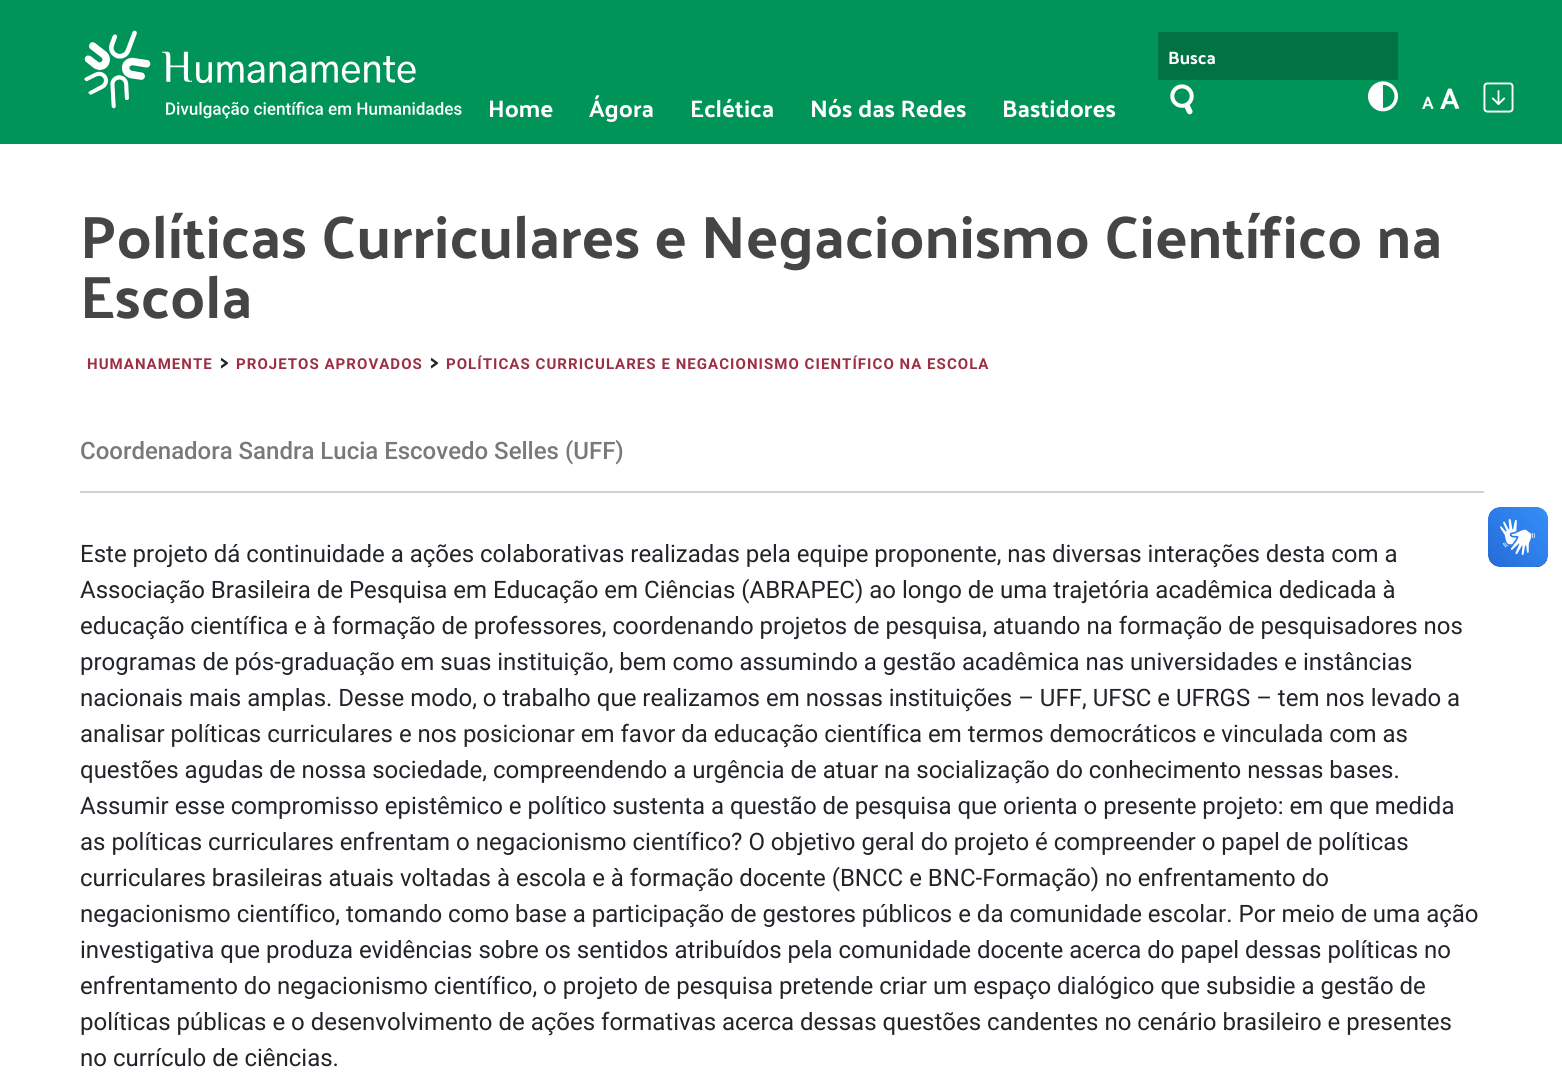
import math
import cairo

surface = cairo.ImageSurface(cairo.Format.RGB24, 1562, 1074)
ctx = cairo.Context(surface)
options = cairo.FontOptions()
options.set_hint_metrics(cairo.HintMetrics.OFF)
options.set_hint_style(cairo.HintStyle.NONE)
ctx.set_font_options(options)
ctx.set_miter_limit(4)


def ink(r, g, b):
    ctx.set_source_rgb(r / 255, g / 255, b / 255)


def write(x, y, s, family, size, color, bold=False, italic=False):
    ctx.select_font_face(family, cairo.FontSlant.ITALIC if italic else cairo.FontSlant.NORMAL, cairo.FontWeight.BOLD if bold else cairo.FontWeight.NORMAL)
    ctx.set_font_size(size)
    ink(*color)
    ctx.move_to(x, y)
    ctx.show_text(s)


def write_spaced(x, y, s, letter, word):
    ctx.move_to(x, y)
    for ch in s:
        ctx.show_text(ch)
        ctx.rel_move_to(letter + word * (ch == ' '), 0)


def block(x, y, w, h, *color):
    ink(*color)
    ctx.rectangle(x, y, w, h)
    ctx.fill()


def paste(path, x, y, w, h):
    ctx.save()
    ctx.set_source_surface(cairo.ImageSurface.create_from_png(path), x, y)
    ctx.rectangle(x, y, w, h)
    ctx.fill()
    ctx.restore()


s1 = dict(family="Palanquin Dark", size=24, color=(255, 255, 255))
s2 = dict(family="Palanquin Dark", size=18, color=(255, 255, 255))
s3 = dict(family="Palanquin Dark", size=30, color=(255, 255, 255))
s4 = dict(family="Palanquin Dark", size=60, color=(69, 69, 69))
s5 = dict(family="Palanquin Dark", size=24, color=(33, 37, 41))
s6 = dict(family="Roboto Medium", size=24, color=(121, 121, 122))
s7 = dict(family="Roboto", size=24, color=(33, 37, 41))

ink(0, 148, 88)
ctx.paint()
paste("pic1.png", 84, 30, 378, 89)
write(488, 117, "Home", **s1)
write(589, 117, "Ágora", **s1)
write(690, 117, "Eclética", **s1)
write(810, 117, "Nós das Redes", **s1)
write(1002, 117, "Bastidores", **s1)
block(1158, 32, 240, 48, 1, 114, 68)
write(1168, 64, "Busca", **s2)
paste("pic2.png", 1170, 84, 24, 31)
paste("pic3.png", 1368, 81, 30, 31)
write(1422, 109, "A", **s2)
write(1440, 109, "A", **s3)
paste("pic4.png", 1483, 82, 31, 31)
block(0, 144, 1562, 930, 255, 255, 255)
write(80, 258, "Políticas Curriculares e Negacionismo Científico na", **s4)
write(80, 318, "Escola", **s4)
ctx.select_font_face("Roboto", cairo.FontSlant.NORMAL, cairo.FontWeight.BOLD)
ctx.set_font_size(15)
ink(156, 47, 67)
write_spaced(87, 369, "HUMANAMENTE", 1.05, 0)
write(220, 369, ">", **s5)
ctx.select_font_face("Roboto", cairo.FontSlant.NORMAL, cairo.FontWeight.BOLD)
ctx.set_font_size(15)
ink(156, 47, 67)
write_spaced(236, 369, "PROJETOS APROVADOS", 1.05, 0)
write(430, 369, ">", **s5)
ctx.select_font_face("Roboto", cairo.FontSlant.NORMAL, cairo.FontWeight.BOLD)
ctx.set_font_size(15)
ink(156, 47, 67)
write_spaced(446, 369, "POLÍTICAS CURRICULARES E NEGACIONISMO CIENTÍFICO NA ESCOLA", 1.05, 0)
block(80, 491, 1404, 2, 209, 209, 209)
write(80, 459, "Coordenadora Sandra Lucia Escovedo Selles (UFF)", **s6)
write(80, 562, "Este projeto dá continuidade a ações colaborativas realizadas pela equipe proponente, nas diversas interações desta com a", **s7)
write(80, 598, "Associação Brasileira de Pesquisa em Educação em Ciências (ABRAPEC) ao longo de uma trajetória acadêmica dedicada à", **s7)
write(80, 634, "educação científica e à formação de professores, coordenando projetos de pesquisa, atuando na formação de pesquisadores nos", **s7)
write(80, 670, "programas de pós-graduação em suas instituição, bem como assumindo a gestão acadêmica nas universidades e instâncias", **s7)
write(80, 706, "nacionais mais amplas. Desse modo, o trabalho que realizamos em nossas instituições – UFF, UFSC e UFRGS – tem nos levado a", **s7)
write(80, 742, "analisar políticas curriculares e nos posicionar em favor da educação científica em termos democráticos e vinculada com as", **s7)
write(80, 778, "questões agudas de nossa sociedade, compreendendo a urgência de atuar na socialização do conhecimento nessas bases.", **s7)
write(80, 814, "Assumir esse compromisso epistêmico e político sustenta a questão de pesquisa que orienta o presente projeto: em que medida", **s7)
write(80, 850, "as políticas curriculares enfrentam o negacionismo científico? O objetivo geral do projeto é compreender o papel de políticas", **s7)
write(80, 886, "curriculares brasileiras atuais voltadas à escola e à formação docente (BNCC e BNC-Formação) no enfrentamento do", **s7)
write(80, 922, "negacionismo científico, tomando como base a participação de gestores públicos e da comunidade escolar. Por meio de uma ação", **s7)
write(80, 958, "investigativa que produza evidências sobre os sentidos atribuídos pela comunidade docente acerca do papel dessas políticas no", **s7)
write(80, 994, "enfrentamento do negacionismo científico, o projeto de pesquisa pretende criar um espaço dialógico que subsidie a gestão de", **s7)
write(80, 1030, "políticas públicas e o desenvolvimento de ações formativas acerca dessas questões candentes no cenário brasileiro e presentes", **s7)
write(80, 1066, "no currículo de ciências.", **s7)
paste("pic5.png", 1488, 507, 60, 60)
paste("pic6.png", 1488, 507, 60, 60)
surface.write_to_png("screenshot.png")
